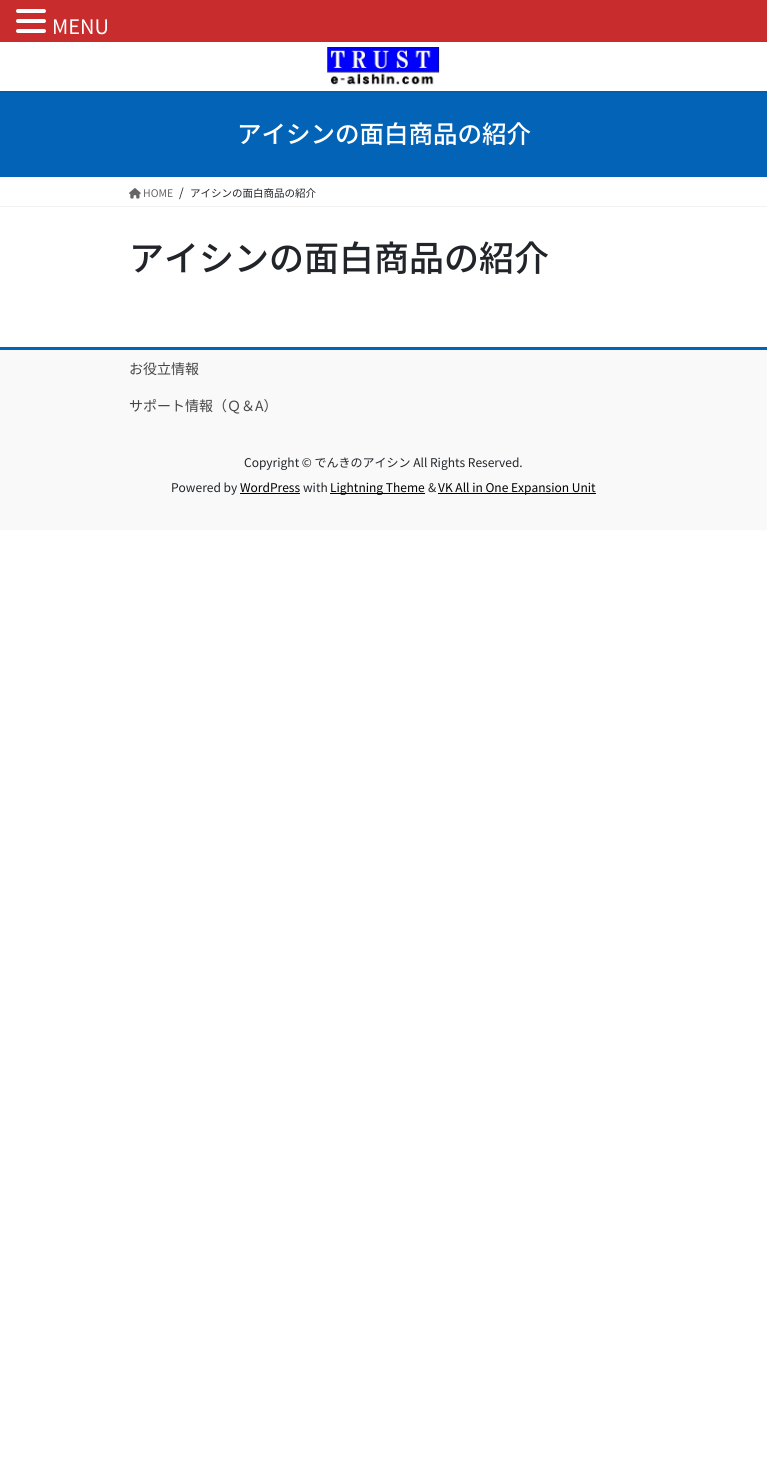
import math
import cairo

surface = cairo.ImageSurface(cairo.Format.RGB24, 767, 1479)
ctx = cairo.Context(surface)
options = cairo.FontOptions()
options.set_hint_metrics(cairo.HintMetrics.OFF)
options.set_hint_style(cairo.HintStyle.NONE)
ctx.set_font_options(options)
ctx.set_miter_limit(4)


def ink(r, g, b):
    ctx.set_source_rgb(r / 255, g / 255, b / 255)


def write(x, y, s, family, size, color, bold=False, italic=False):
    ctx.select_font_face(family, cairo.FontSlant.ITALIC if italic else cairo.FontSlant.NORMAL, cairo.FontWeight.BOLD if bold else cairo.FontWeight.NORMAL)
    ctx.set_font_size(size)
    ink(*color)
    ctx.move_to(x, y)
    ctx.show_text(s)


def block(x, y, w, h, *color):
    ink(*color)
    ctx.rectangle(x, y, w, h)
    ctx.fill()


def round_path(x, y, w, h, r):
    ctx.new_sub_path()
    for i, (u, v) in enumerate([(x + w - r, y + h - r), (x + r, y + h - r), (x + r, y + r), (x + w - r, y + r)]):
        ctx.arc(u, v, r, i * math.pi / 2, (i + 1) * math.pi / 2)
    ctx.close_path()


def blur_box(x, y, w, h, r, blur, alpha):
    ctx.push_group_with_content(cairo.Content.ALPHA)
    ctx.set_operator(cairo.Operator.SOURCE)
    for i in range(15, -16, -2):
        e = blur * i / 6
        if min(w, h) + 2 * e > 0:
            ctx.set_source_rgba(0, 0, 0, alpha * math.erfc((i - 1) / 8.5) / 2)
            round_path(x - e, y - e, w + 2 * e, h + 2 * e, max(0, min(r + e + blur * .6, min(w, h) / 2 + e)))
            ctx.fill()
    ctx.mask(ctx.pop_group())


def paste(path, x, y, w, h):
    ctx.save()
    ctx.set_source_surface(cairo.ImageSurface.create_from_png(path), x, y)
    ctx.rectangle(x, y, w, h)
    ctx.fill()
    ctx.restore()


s1 = dict(family="Noto Sans JP", size=20, color=(255, 255, 255))
s2 = dict(family="Noto Sans JP Medium", size=24.5, color=(255, 255, 255))
s3 = dict(family="Noto Sans JP", size=10.5, color=(102, 102, 102))
s4 = dict(family="Noto Sans JP", size=12, color=(33, 37, 41))
s5 = dict(family="Noto Sans JP", size=10.5, color=(33, 37, 41))
s6 = dict(family="Noto Sans JP Medium", size=35, color=(33, 37, 41))
s7 = dict(family="Noto Sans JP", size=14, color=(70, 70, 70))
s8 = dict(family="Noto Sans JP", size=12, color=(0, 0, 0))

ink(255, 255, 255)
ctx.paint()
block(0, 91, 767, 86, 3, 99, 183)
ctx.save()
ctx.rectangle(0, 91, 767, 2)
ctx.clip()
ink(0, 0, 0)
blur_box(0, 43, 767, 49, 0, 1.5, 0.1)
ctx.restore()
block(0, 0, 767, 42, 201, 44, 44)
ink(255, 255, 255)
round_path(16, 9, 30, 4, 2)
ctx.fill()
round_path(16, 19, 30, 4, 2)
ctx.fill()
round_path(16, 29, 30, 4, 2)
ctx.fill()
write(52, 34, "MENU", **s1)
paste("pic1.png", 327, 47, 113, 39)
write(237, 143, "アイシンの面白商品の紹介", **s2)
block(0, 206, 767, 1, 242, 242, 242)
paste("pic2.png", 129, 188, 12, 11)
write(143, 197, "HOME", **s3)
write(179, 197, "/", **s4)
write(190, 197, "アイシンの面白商品の紹介", **s5)
write(129, 271, "アイシンの面白商品の紹介", **s6)
block(0, 350, 767, 180, 249, 249, 249)
block(0, 347, 767, 3, 3, 99, 183)
write(129, 374, "お役立情報", **s7)
write(129, 411, "サポート情報（Ｑ＆A）", **s7)
write(244, 467, "Copyright © でんきのアイシン All Rights Reserved.", **s4)
write(171, 492, "Powered by", **s4)
write(240, 492, "WordPress", **s8)
block(240, 493, 60, 1, 0, 0, 0)
write(303, 492, "with", **s4)
block(330, 493, 95, 1, 0, 0, 0)
write(330, 492, "Lightning Theme", **s8)
write(428, 492, "&", **s4)
block(438, 493, 158, 1, 0, 0, 0)
write(438, 492, "VK All in One Expansion Unit", **s8)
surface.write_to_png("screenshot.png")
